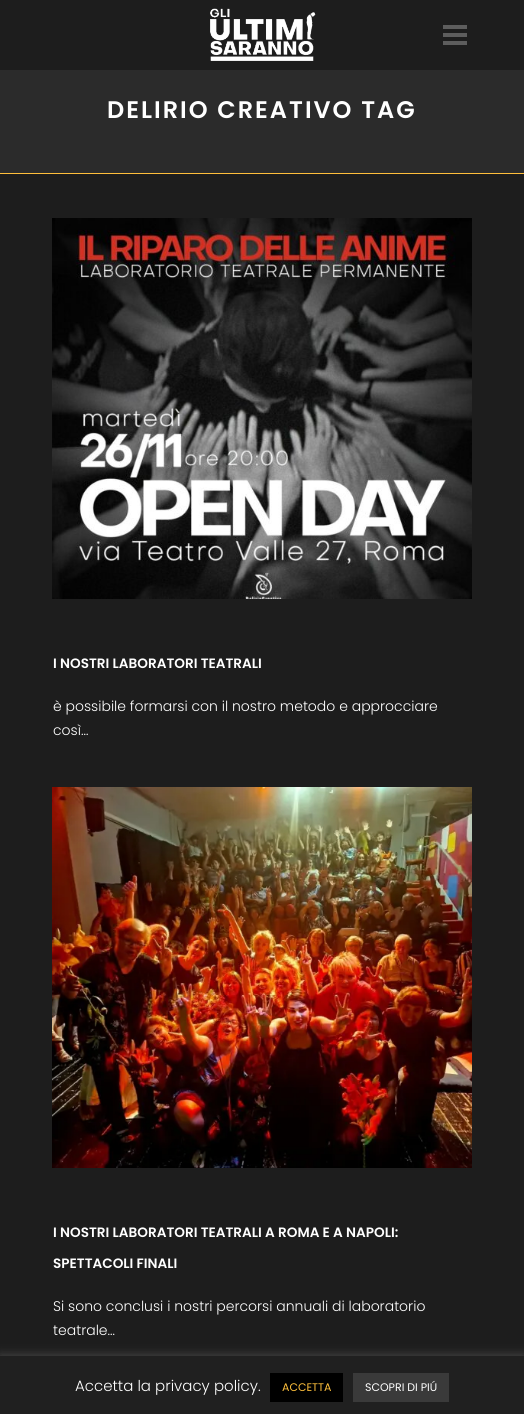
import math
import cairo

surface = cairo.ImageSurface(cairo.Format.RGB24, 524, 1414)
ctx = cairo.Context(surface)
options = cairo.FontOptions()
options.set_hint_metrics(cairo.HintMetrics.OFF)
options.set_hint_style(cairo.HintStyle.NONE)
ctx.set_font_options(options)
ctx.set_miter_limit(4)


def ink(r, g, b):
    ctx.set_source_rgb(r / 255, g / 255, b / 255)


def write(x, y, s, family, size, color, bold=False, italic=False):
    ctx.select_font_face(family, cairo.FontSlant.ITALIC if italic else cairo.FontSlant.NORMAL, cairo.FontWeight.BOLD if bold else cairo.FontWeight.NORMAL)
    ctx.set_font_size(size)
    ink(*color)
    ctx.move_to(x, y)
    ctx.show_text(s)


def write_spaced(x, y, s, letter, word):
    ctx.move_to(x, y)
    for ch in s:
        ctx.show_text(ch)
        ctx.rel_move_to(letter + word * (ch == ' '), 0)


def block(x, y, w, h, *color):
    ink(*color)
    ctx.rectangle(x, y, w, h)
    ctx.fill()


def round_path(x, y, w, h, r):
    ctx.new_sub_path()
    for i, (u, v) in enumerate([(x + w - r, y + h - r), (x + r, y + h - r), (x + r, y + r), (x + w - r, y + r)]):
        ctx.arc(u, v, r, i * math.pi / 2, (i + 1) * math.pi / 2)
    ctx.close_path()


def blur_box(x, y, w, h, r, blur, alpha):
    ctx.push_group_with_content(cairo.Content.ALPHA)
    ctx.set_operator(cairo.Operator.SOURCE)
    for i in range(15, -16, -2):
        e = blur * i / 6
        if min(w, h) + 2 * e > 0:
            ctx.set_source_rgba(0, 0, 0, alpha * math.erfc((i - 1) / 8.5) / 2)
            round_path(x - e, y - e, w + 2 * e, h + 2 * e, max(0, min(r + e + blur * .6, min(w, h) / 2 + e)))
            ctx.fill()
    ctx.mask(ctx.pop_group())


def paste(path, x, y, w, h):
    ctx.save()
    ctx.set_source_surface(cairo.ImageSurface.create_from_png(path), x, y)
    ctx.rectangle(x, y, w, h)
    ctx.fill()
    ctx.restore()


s1 = dict(family="Poppins SemiBold", size=13.6, color=(255, 255, 255))
s2 = dict(family="Poppins Light", size=14, color=(255, 255, 255))
s3 = dict(family="Poppins Light", size=15, color=(255, 255, 255))
s4 = dict(family="Poppins", size=11, color=(255, 192, 59))
s5 = dict(family="Poppins", size=11, color=(255, 255, 255))

ink(29, 29, 29)
ctx.paint()
paste("pic1.png", 210, 8, 106, 53)
block(443, 33, 24, 4, 93, 93, 93)
block(443, 25, 24, 4, 93, 93, 93)
block(443, 41, 24, 4, 93, 93, 93)
block(0, 70, 524, 103, 43, 43, 43)
block(0, 173, 524, 1, 255, 190, 59)
ctx.select_font_face("Poppins SemiBold")
ctx.set_font_size(24)
ink(255, 255, 255)
write_spaced(107, 118, "DELIRIO CREATIVO TAG", 2, 0)
paste("pic2.png", 52, 218, 420, 381)
write(53, 668, "I NOSTRI LABORATORI TEATRALI", **s1)
write(53, 711, "è possibile formarsi con il nostro metodo e approcciare", **s2)
write(53, 735, "così…", **s2)
paste("pic3.png", 52, 787, 420, 381)
write(53, 1237, "I NOSTRI LABORATORI TEATRALI A ROMA E A NAPOLI:", **s1)
write(53, 1268, "SPETTACOLI FINALI", **s1)
write(53, 1311, "Si sono conclusi i nostri percorsi annuali di laboratorio", **s2)
write(53, 1335, "teatrale…", **s2)
ink(172, 171, 171)
blur_box(0, 1355, 524, 58, 0, 5, 0.3)
block(0, 1356, 524, 58, 32, 32, 32)
write(75, 1391, "Accetta la privacy policy.", **s3)
block(270, 1373, 73, 29, 0, 0, 0)
write(282, 1391, "ACCETTA", **s4)
block(353, 1373, 96, 29, 58, 58, 58)
write(365, 1391, "SCOPRI DI PIÚ", **s5)
surface.write_to_png("screenshot.png")
